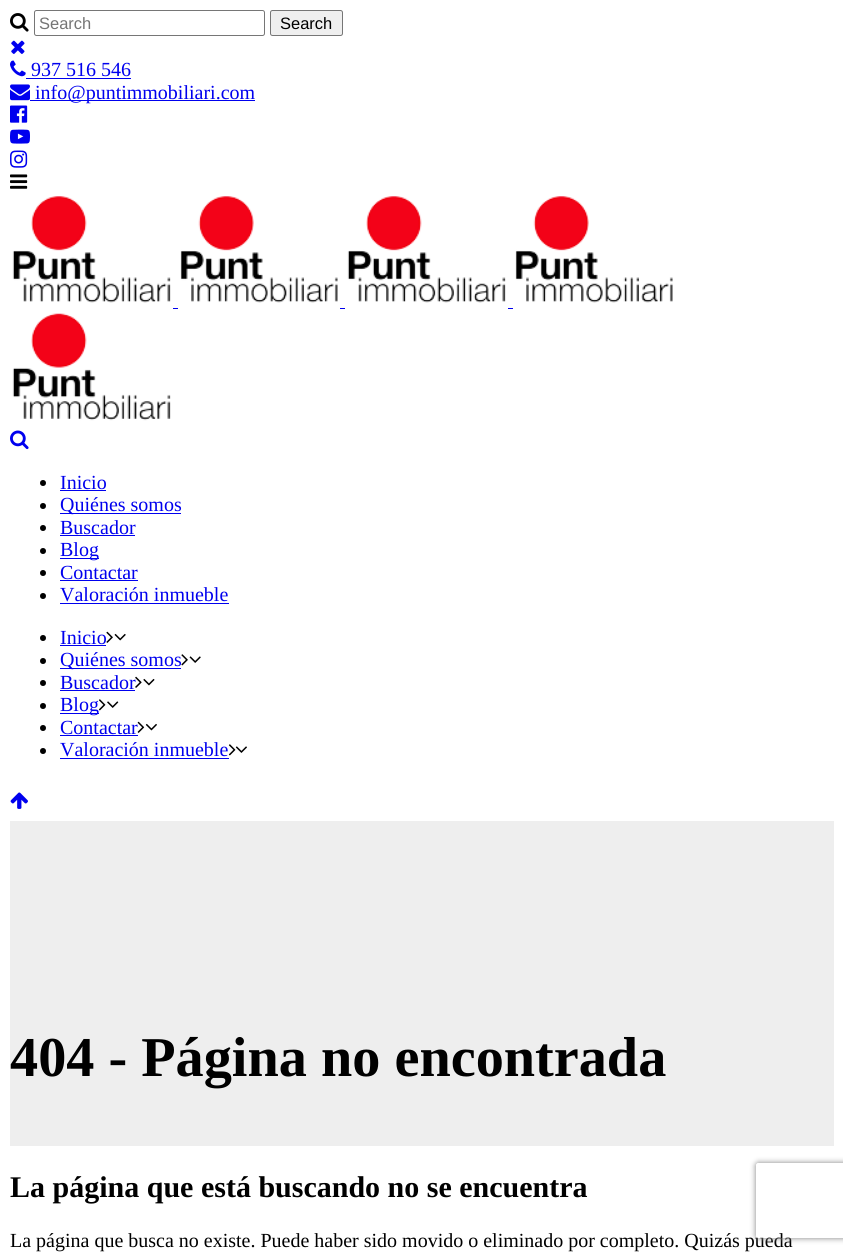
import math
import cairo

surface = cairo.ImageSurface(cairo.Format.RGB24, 843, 1255)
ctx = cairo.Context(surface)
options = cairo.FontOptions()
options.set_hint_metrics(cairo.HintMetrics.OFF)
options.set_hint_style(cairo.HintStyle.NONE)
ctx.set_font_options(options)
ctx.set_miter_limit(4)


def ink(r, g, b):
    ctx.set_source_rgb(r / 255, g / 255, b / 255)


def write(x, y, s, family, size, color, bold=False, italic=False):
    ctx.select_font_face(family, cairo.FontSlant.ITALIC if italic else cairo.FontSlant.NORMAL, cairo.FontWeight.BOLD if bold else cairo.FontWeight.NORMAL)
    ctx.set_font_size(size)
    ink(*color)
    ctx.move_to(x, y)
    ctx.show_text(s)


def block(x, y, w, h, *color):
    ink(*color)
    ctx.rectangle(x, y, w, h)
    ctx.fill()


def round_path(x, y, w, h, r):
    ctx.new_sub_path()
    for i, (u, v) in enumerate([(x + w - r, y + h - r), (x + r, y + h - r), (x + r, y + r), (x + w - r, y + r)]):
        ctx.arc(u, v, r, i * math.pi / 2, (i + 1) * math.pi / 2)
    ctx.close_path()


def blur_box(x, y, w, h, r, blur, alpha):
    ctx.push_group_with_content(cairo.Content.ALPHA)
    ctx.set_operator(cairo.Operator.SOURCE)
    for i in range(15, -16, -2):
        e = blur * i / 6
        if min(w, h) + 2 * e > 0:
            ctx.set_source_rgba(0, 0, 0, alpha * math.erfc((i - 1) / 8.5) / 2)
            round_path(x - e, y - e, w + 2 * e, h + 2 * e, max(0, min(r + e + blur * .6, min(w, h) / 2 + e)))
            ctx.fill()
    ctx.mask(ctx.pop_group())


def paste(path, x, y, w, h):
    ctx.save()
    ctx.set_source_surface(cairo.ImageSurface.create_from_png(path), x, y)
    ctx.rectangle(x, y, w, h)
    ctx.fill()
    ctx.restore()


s1 = dict(family="Liberation Sans", size=16.5, color=(117, 117, 117))
s2 = dict(family="Liberation Sans", size=16.5, color=(0, 0, 0))
s3 = dict(family="Liberation Serif", size=20, color=(0, 0, 238))
s4 = dict(family="Liberation Serif", size=56.25, color=(0, 0, 0), bold=True)
s5 = dict(family="Liberation Serif", size=30, color=(0, 0, 0), bold=True)
s6 = dict(family="Liberation Serif", size=20, color=(0, 0, 0))

ink(255, 255, 255)
ctx.paint()
paste("pic1.png", 10, 13, 19, 19)
round_path(34.5, 10.5, 230, 25, 2)
ink(118, 118, 118)
ctx.set_line_width(1)
ctx.stroke()
write(39, 29, "Search", **s1)
ink(239, 239, 239)
round_path(270.5, 10.5, 72, 25, 2)
ctx.fill_preserve()
ink(118, 118, 118)
ctx.stroke()
write(280, 29, "Search", **s2)
paste("pic2.png", 11, 40, 14, 14)
paste("pic3.png", 10, 60, 16, 17)
write(31, 76, "937 516 546", **s3)
block(26, 78, 105, 1, 0, 0, 238)
paste("pic4.png", 10, 84, 20, 17)
block(30, 100, 225, 1, 0, 0, 238)
write(35, 99, "info@puntimmobiliari.com", **s3)
paste("pic5.png", 10, 105, 18, 18)
paste("pic6.png", 10, 129, 20, 15)
paste("pic7.png", 10, 150, 18, 18)
paste("pic8.png", 10, 174, 18, 15)
paste("pic9.png", 12, 196, 159, 107)
paste("pic10.png", 180, 196, 158, 107)
paste("pic9.png", 347, 196, 159, 107)
paste("pic10.png", 515, 196, 158, 107)
block(173, 308, 5, 1, 0, 0, 238)
block(340, 308, 5, 1, 0, 0, 238)
block(508, 308, 5, 1, 0, 0, 238)
paste("pic11.png", 12, 313, 159, 108)
paste("pic12.png", 10, 430, 19, 20)
ink(0, 0, 0)
ctx.arc(43, 483, 3, 0, 2 * math.pi)
ctx.fill()
write(60, 489, "Inicio", **s3)
block(60, 490, 46, 1, 0, 0, 238)
ink(0, 0, 0)
ctx.new_path()
ctx.arc(43, 506, 3, 0, 2 * math.pi)
ctx.fill()
block(60, 513, 121, 1, 0, 0, 238)
write(60, 511, "Quiénes somos", **s3)
ink(0, 0, 0)
ctx.new_path()
ctx.arc(43, 528, 3, 0, 2 * math.pi)
ctx.fill()
write(60, 534, "Buscador", **s3)
block(60, 535, 75, 1, 0, 0, 238)
ink(0, 0, 0)
ctx.new_path()
ctx.arc(43, 551, 3, 0, 2 * math.pi)
ctx.fill()
block(60, 558, 39, 1, 0, 0, 238)
write(60, 556, "Blog", **s3)
ink(0, 0, 0)
ctx.new_path()
ctx.arc(43, 573, 3, 0, 2 * math.pi)
ctx.fill()
write(60, 579, "Contactar", **s3)
block(60, 580, 78, 1, 0, 0, 238)
ink(0, 0, 0)
ctx.new_path()
ctx.arc(43, 596, 3, 0, 2 * math.pi)
ctx.fill()
write(60, 601, "Valoración inmueble", **s3)
block(60, 603, 169, 1, 0, 0, 238)
ink(0, 0, 0)
ctx.new_path()
ctx.arc(43, 638, 3, 0, 2 * math.pi)
ctx.fill()
write(60, 644, "Inicio", **s3)
block(60, 645, 46, 1, 0, 0, 238)
paste("pic13.png", 106, 631, 7, 12)
paste("pic14.png", 114, 633, 12, 8)
ink(0, 0, 0)
ctx.arc(43, 661, 3, 0, 2 * math.pi)
ctx.fill()
block(60, 668, 121, 1, 0, 0, 238)
write(60, 666, "Quiénes somos", **s3)
paste("pic15.png", 181, 654, 7, 12)
paste("pic16.png", 189, 656, 12, 7)
ink(0, 0, 0)
ctx.arc(43, 683, 3, 0, 2 * math.pi)
ctx.fill()
write(60, 689, "Buscador", **s3)
block(60, 690, 75, 1, 0, 0, 238)
paste("pic17.png", 135, 676, 7, 12)
paste("pic18.png", 143, 678, 12, 8)
ink(0, 0, 0)
ctx.arc(43, 706, 3, 0, 2 * math.pi)
ctx.fill()
block(60, 713, 39, 1, 0, 0, 238)
write(60, 711, "Blog", **s3)
paste("pic19.png", 98, 699, 8, 12)
paste("pic20.png", 107, 701, 12, 7)
ink(0, 0, 0)
ctx.arc(43, 728, 3, 0, 2 * math.pi)
ctx.fill()
write(60, 734, "Contactar", **s3)
block(60, 735, 78, 1, 0, 0, 238)
paste("pic21.png", 137, 721, 8, 12)
paste("pic22.png", 145, 723, 12, 8)
ink(0, 0, 0)
ctx.arc(43, 751, 3, 0, 2 * math.pi)
ctx.fill()
write(60, 756, "Valoración inmueble", **s3)
block(60, 758, 169, 1, 0, 0, 238)
paste("pic23.png", 228, 744, 8, 12)
paste("pic24.png", 235, 746, 12, 7)
paste("pic25.png", 10, 792, 18, 17)
block(10, 821, 824, 325, 238, 238, 238)
write(10, 1076, "404 - Página no encontrada", **s4)
write(10, 1197, "La página que está buscando no se encuentra", **s5)
write(10, 1247, "La página que busca no existe. Puede haber sido movido o eliminado por completo. Quizás pueda", **s6)
ctx.save()
ctx.set_fill_rule(cairo.FillRule.EVEN_ODD)
ctx.new_path()
ctx.move_to(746, 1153)
ctx.line_to(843, 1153)
ctx.line_to(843, 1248)
ctx.line_to(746, 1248)
ctx.close_path()
ctx.move_to(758.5, 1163)
ctx.line_to(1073.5, 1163)
ctx.curve_to(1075, 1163, 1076, 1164, 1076, 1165.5)
ctx.line_to(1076, 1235.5)
ctx.curve_to(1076, 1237, 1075, 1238, 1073.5, 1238)
ctx.line_to(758.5, 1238)
ctx.curve_to(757, 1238, 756, 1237, 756, 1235.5)
ctx.line_to(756, 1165.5)
ctx.curve_to(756, 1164, 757, 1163, 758.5, 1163)
ctx.close_path()
ctx.clip()
ink(128, 128, 128)
blur_box(756, 1163, 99, 75, 2.5, 3, 1)
ctx.restore()
surface.write_to_png("screenshot.png")
